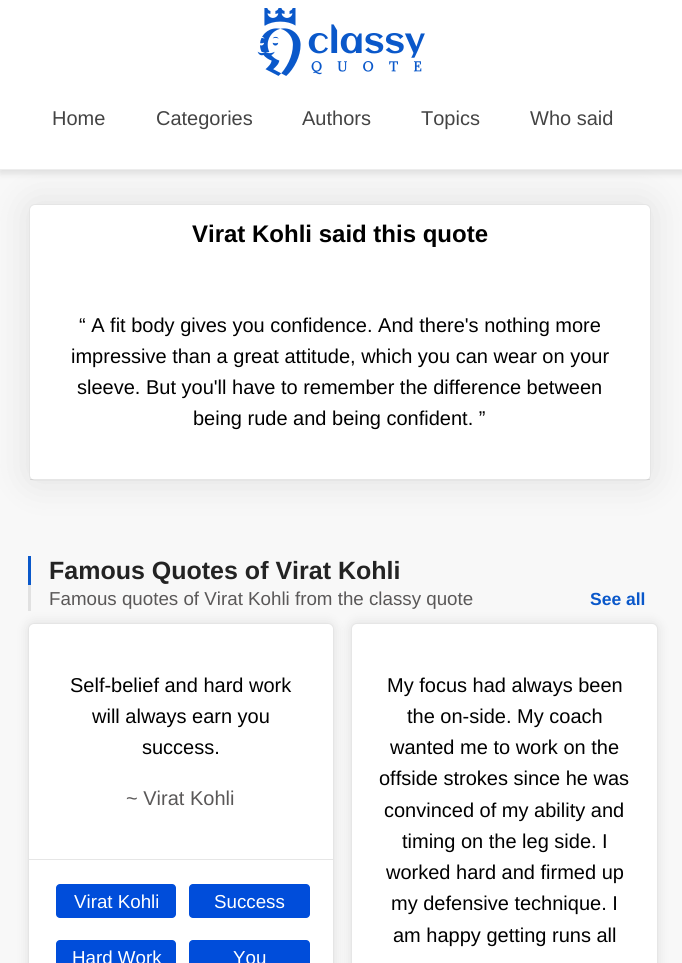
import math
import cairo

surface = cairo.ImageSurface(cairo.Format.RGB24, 682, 963)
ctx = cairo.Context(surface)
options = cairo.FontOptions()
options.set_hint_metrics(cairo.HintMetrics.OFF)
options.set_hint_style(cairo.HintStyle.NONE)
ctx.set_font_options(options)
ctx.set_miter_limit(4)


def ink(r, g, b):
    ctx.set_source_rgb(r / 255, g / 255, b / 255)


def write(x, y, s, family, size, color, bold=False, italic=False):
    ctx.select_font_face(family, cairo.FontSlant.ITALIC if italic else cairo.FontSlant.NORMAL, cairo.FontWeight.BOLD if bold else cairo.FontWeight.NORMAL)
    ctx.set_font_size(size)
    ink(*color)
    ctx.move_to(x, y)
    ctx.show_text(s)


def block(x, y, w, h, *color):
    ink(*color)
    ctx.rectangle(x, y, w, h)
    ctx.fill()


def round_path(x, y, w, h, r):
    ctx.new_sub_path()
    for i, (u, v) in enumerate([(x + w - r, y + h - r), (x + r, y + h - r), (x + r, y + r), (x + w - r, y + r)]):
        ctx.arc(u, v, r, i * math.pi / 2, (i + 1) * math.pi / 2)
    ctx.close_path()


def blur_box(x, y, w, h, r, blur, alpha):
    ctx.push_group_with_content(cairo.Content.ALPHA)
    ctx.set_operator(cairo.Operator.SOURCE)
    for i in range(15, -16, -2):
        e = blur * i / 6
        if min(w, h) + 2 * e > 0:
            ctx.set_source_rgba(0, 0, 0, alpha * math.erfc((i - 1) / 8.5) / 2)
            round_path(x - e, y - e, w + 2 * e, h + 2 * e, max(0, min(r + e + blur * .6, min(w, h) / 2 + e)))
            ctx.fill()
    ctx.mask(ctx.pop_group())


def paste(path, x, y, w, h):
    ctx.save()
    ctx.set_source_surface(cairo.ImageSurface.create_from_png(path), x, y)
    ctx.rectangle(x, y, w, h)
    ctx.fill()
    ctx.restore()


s1 = dict(family="Liberation Sans", size=20, color=(68, 68, 68))
s2 = dict(family="Liberation Sans", size=24, color=(0, 0, 0), bold=True)
s3 = dict(family="Liberation Sans", size=20, color=(0, 0, 0))
s4 = dict(family="Liberation Sans", size=25, color=(35, 35, 35), bold=True)
s5 = dict(family="Liberation Sans", size=18.75, color=(90, 88, 88))
s6 = dict(family="Liberation Sans", size=17.5, color=(10, 88, 202), bold=True)
s7 = dict(family="Liberation Sans", size=20, color=(90, 88, 88))
s8 = dict(family="Liberation Sans", size=18.75, color=(255, 255, 255))

ink(248, 248, 248)
ctx.paint()
ink(0, 0, 0)
blur_box(0, 3, 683, 170, 0, 4, 0.12)
blur_box(29, 204, 622, 277, 6, 19, 0.1)
block(0, 0, 682, 169, 255, 255, 255)
block(0, 169, 682, 1, 237, 237, 237)
paste("pic1.png", 257, 8, 168, 68)
write(52, 125, "Home", **s1)
write(156, 125, "Categories", **s1)
write(302, 125, "Authors", **s1)
write(421, 125, "Topics", **s1)
write(530, 125, "Who said", **s1)
ink(255, 255, 255)
round_path(29.5, 204.5, 621, 276, 5.5)
ctx.fill_preserve()
ink(229, 229, 229)
ctx.set_line_width(1)
ctx.stroke()
write(192, 242, "Virat Kohli said this quote", **s2)
ctx.set_source_rgba(0, 0, 0, 0.1)
ctx.rectangle(30, 479, 620, 1)
ctx.fill()
write(79, 332, "“ A fit body gives you confidence. And there's nothing more", **s3)
write(71, 363, "impressive than a great attitude, which you can wear on your", **s3)
write(77, 394, "sleeve. But you'll have to remember the difference between", **s3)
write(193, 425, "being rude and being confident. ”", **s3)
block(28, 556, 3, 29, 10, 88, 202)
write(49, 579, "Famous Quotes of Virat Kohli", **s4)
block(28, 585, 3, 26, 225, 225, 225)
write(49, 605, "Famous quotes of Virat Kohli from the classy quote", **s5)
write(590, 605, "See all", **s6)
ink(0, 0, 0)
blur_box(28, 623, 306, 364, 6, 6, 0.1)
ink(255, 255, 255)
round_path(28.5, 623.5, 305, 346, 5.5)
ctx.fill_preserve()
ink(229, 229, 229)
ctx.stroke()
block(29, 859, 304, 1, 230, 230, 230)
write(70, 692, "Self-belief and hard work", **s3)
write(92, 723, "will always earn you", **s3)
write(142, 754, "success.", **s3)
write(126, 805, "~ Virat Kohli", **s7)
ink(0, 77, 218)
round_path(56, 884, 120, 34, 4)
ctx.fill()
write(74, 908, "Virat Kohli", **s8)
ink(0, 77, 218)
round_path(189, 884, 121, 34, 4)
ctx.fill()
write(214, 908, "Success", **s8)
ink(0, 77, 218)
round_path(56, 940, 120, 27, 4)
ctx.fill()
write(72, 964, "Hard Work", **s8)
ink(0, 77, 218)
round_path(189, 940, 121, 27, 4)
ctx.fill()
write(233, 964, "You", **s8)
ink(0, 0, 0)
blur_box(351, 623, 307, 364, 6, 6, 0.1)
ink(255, 255, 255)
round_path(351, 623, 307, 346, 6)
ctx.fill()
round_path(351.5, 623.5, 306, 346, 5.5)
ctx.set_source_rgba(0, 0, 0, 0.1)
ctx.stroke()
write(387, 692, "My focus had always been", **s3)
write(407, 723, "the on-side. My coach", **s3)
write(390, 754, "wanted me to work on the", **s3)
write(379, 785, "offside strokes since he was", **s3)
write(384, 817, "convinced of my ability and", **s3)
write(402, 848, "timing on the leg side. I", **s3)
write(386, 879, "worked hard and firmed up", **s3)
write(391, 910, "my defensive technique. I", **s3)
write(393, 942, "am happy getting runs all", **s3)
surface.write_to_png("screenshot.png")
